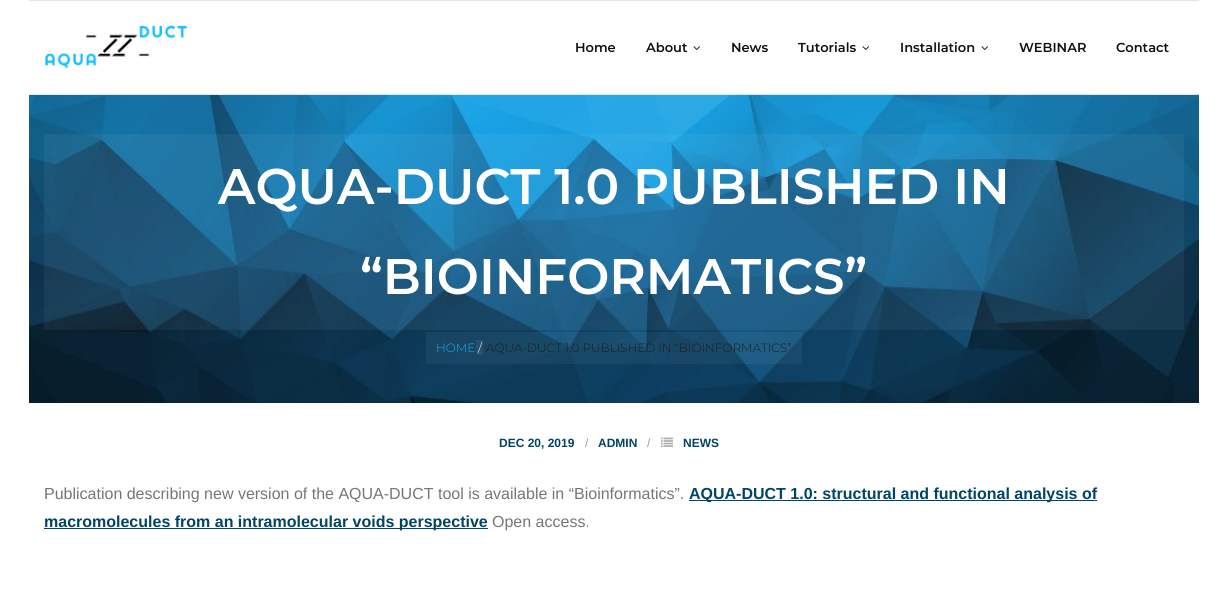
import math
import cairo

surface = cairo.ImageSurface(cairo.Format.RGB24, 1228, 593)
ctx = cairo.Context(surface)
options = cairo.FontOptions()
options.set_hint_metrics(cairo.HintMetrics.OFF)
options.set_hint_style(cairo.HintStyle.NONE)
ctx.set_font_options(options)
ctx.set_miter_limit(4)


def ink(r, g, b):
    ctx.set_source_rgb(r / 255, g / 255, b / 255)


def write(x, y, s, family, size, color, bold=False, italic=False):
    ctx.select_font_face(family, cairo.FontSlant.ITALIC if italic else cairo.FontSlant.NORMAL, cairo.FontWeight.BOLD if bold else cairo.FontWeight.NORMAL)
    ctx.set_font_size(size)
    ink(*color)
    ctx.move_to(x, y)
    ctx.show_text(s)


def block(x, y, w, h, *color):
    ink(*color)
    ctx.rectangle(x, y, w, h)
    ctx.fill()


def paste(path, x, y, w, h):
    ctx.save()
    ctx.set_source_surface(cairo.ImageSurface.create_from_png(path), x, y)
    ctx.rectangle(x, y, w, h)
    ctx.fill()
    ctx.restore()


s1 = dict(family="Montserrat SemiBold", size=13, color=(17, 17, 17))
s2 = dict(family="Montserrat SemiBold", size=50, color=(255, 255, 255))
s3 = dict(family="Montserrat Light", size=12, color=(19, 175, 240))
s4 = dict(family="Montserrat Light", size=12, color=(255, 255, 255))
s5 = dict(family="Montserrat Light", size=12, color=(29, 29, 31))
s6 = dict(family="Liberation Sans", size=12, color=(0, 68, 102), bold=True)
s7 = dict(family="Liberation Sans", size=12, color=(153, 153, 153))
s8 = dict(family="Liberation Sans", size=16, color=(118, 118, 118))
s9 = dict(family="Liberation Sans", size=16, color=(0, 68, 102), bold=True)

ink(255, 255, 255)
ctx.paint()
block(29, 0, 1170, 1, 229, 229, 229)
block(29, 94, 1170, 1, 229, 229, 229)
paste("pic1.png", 45, 25, 143, 44)
write(575, 52, "Home", **s1)
write(646, 52, "About", **s1)
paste("pic2.png", 693, 46, 7, 4)
write(731, 52, "News", **s1)
write(798, 52, "Tutorials", **s1)
paste("pic2.png", 862, 46, 7, 4)
write(900, 52, "Installation", **s1)
paste("pic2.png", 981, 46, 7, 4)
write(1019, 52, "WEBINAR", **s1)
write(1116, 52, "Contact", **s1)
paste("pic3.png", 29, 95, 1170, 308)
ctx.set_source_rgba(1, 1, 1, 0.05)
ctx.rectangle(44, 134, 1140, 196)
ctx.fill()
write(218, 204, "AQUA-DUCT 1.0 PUBLISHED IN", **s2)
write(360, 294, "“BIOINFORMATICS”", **s2)
ctx.set_source_rgba(1, 1, 1, 0.05)
ctx.rectangle(426, 332, 376, 32)
ctx.fill()
write(436, 352, "HOME", **s3)
block(476, 340, 7, 15, 38, 80, 110)
write(478, 352, "/", **s4)
write(486, 352, "AQUA-DUCT 1.0 PUBLISHED IN “BIOINFORMATICS”", **s5)
write(499, 447, "DEC 20, 2019", **s6)
write(585, 447, "/", **s7)
write(598, 447, "ADMIN", **s6)
write(647, 447, "/", **s7)
paste("pic4.png", 661, 437, 12, 10)
write(683, 447, "NEWS", **s6)
write(44, 499, "Publication describing new version of the AQUA-DUCT tool is available in “Bioinformatics”.", **s8)
block(689, 500, 408, 1, 0, 68, 102)
write(689, 499, "AQUA-DUCT 1.0: structural and functional analysis of", **s9)
block(44, 528, 444, 1, 0, 68, 102)
write(44, 527, "macromolecules from an intramolecular voids perspective", **s9)
write(492, 527, "Open access.", **s8)
surface.write_to_png("screenshot.png")
